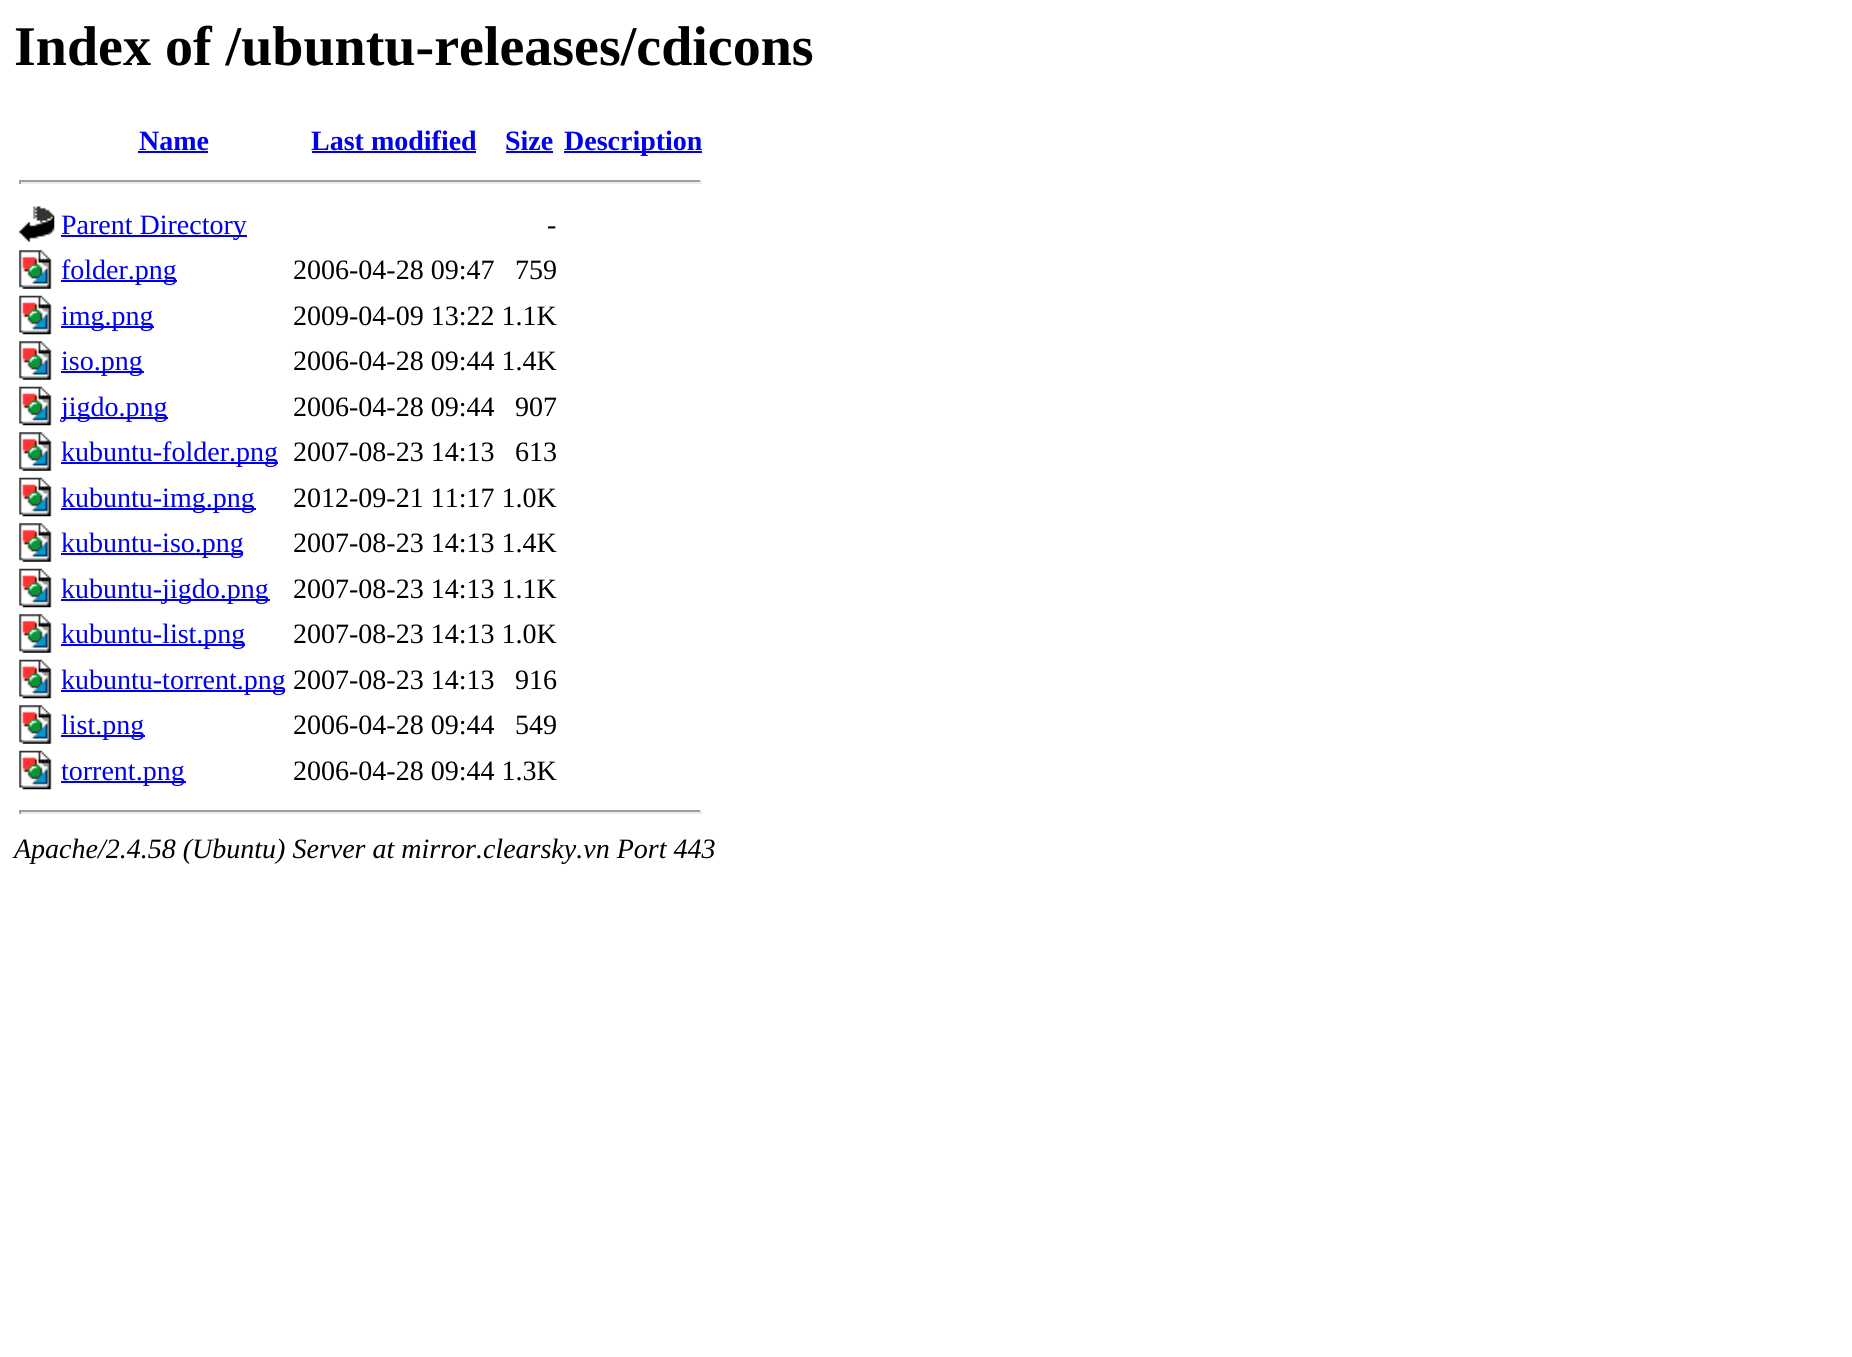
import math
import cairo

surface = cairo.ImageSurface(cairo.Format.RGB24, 1852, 1357)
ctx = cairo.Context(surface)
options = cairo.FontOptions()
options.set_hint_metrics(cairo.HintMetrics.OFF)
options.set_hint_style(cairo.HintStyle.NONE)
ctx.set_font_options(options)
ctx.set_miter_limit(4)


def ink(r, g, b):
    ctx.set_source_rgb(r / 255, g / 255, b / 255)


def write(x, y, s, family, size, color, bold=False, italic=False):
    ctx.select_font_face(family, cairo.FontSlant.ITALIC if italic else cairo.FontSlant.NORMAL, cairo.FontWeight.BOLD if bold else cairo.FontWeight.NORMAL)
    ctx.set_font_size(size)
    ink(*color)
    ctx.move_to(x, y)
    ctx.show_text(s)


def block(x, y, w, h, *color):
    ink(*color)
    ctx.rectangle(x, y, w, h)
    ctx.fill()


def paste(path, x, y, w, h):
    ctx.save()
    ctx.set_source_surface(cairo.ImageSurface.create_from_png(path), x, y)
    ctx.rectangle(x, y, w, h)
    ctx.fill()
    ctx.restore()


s1 = dict(family="Liberation Serif", size=56, color=(0, 0, 0), bold=True)
s2 = dict(family="Liberation Serif", size=28, color=(0, 0, 238), bold=True)
s3 = dict(family="Liberation Serif", size=28, color=(0, 0, 238))
s4 = dict(family="Liberation Serif", size=28, color=(0, 0, 0))
s5 = dict(family="Liberation Serif", size=28, color=(0, 0, 0), italic=True)

ink(255, 255, 255)
ctx.paint()
write(14, 65, "Index of /ubuntu-releases/cdicons", **s1)
write(139, 150, "Name", **s2)
block(138, 151, 70, 2, 0, 0, 238)
write(311, 150, "Last modified", **s2)
block(312, 151, 164, 2, 0, 0, 238)
write(505, 150, "Size", **s2)
block(506, 151, 47, 2, 0, 0, 238)
block(564, 151, 138, 2, 0, 0, 238)
write(564, 150, "Description", **s2)
block(19, 180, 683, 2, 159, 159, 159)
block(700, 180, 2, 4, 238, 238, 238)
block(19, 182, 683, 2, 238, 238, 238)
block(19, 180, 2, 4, 159, 159, 159)
paste("pic1.png", 19, 206, 36, 36)
block(61, 235, 186, 2, 0, 0, 238)
write(61, 234, "Parent Directory", **s3)
write(547, 234, "-", **s4)
paste("pic2.png", 19, 250, 33, 39)
block(61, 280, 116, 2, 0, 0, 238)
write(61, 279, "folder.png", **s3)
write(293, 279, "2006-04-28 09:47", **s4)
write(515, 279, "759", **s4)
paste("pic3.png", 19, 295, 33, 40)
block(61, 326, 93, 2, 0, 0, 238)
write(61, 325, "img.png", **s3)
write(293, 325, "2009-04-09 13:22 1.1K", **s4)
paste("pic2.png", 19, 341, 33, 39)
block(61, 371, 83, 2, 0, 0, 238)
write(61, 370, "iso.png", **s3)
write(293, 370, "2006-04-28 09:44 1.4K", **s4)
paste("pic3.png", 19, 386, 33, 40)
block(61, 417, 107, 2, 0, 0, 238)
write(61, 416, "jigdo.png", **s3)
write(293, 416, "2006-04-28 09:44", **s4)
write(515, 416, "907", **s4)
paste("pic2.png", 19, 432, 33, 39)
block(61, 462, 217, 2, 0, 0, 238)
write(61, 461, "kubuntu-folder.png", **s3)
write(293, 461, "2007-08-23 14:13", **s4)
write(515, 461, "613", **s4)
paste("pic3.png", 19, 477, 33, 40)
block(61, 508, 195, 2, 0, 0, 238)
write(61, 507, "kubuntu-img.png", **s3)
write(293, 507, "2012-09-21 11:17 1.0K", **s4)
paste("pic2.png", 19, 523, 33, 39)
block(61, 553, 182, 2, 0, 0, 238)
write(61, 552, "kubuntu-iso.png", **s3)
write(293, 552, "2007-08-23 14:13 1.4K", **s4)
paste("pic3.png", 19, 568, 33, 40)
block(61, 599, 209, 2, 0, 0, 238)
write(61, 598, "kubuntu-jigdo.png", **s3)
write(293, 598, "2007-08-23 14:13 1.1K", **s4)
paste("pic2.png", 19, 614, 33, 39)
block(61, 644, 184, 2, 0, 0, 238)
write(61, 643, "kubuntu-list.png", **s3)
write(293, 643, "2007-08-23 14:13 1.0K", **s4)
paste("pic3.png", 19, 659, 33, 40)
block(61, 690, 224, 2, 0, 0, 238)
write(61, 689, "kubuntu-torrent.png", **s3)
write(293, 689, "2007-08-23 14:13", **s4)
write(515, 689, "916", **s4)
paste("pic2.png", 19, 705, 33, 39)
block(61, 735, 84, 2, 0, 0, 238)
write(61, 734, "list.png", **s3)
write(293, 734, "2006-04-28 09:44", **s4)
write(515, 734, "549", **s4)
paste("pic3.png", 19, 750, 33, 40)
block(61, 781, 125, 2, 0, 0, 238)
write(61, 780, "torrent.png", **s3)
write(293, 780, "2006-04-28 09:44 1.3K", **s4)
block(19, 810, 683, 2, 159, 159, 159)
block(700, 810, 2, 4, 238, 238, 238)
block(19, 812, 683, 2, 238, 238, 238)
block(19, 810, 2, 4, 159, 159, 159)
write(14, 858, "Apache/2.4.58 (Ubuntu) Server at mirror.clearsky.vn Port 443", **s5)
surface.write_to_png("screenshot.png")
